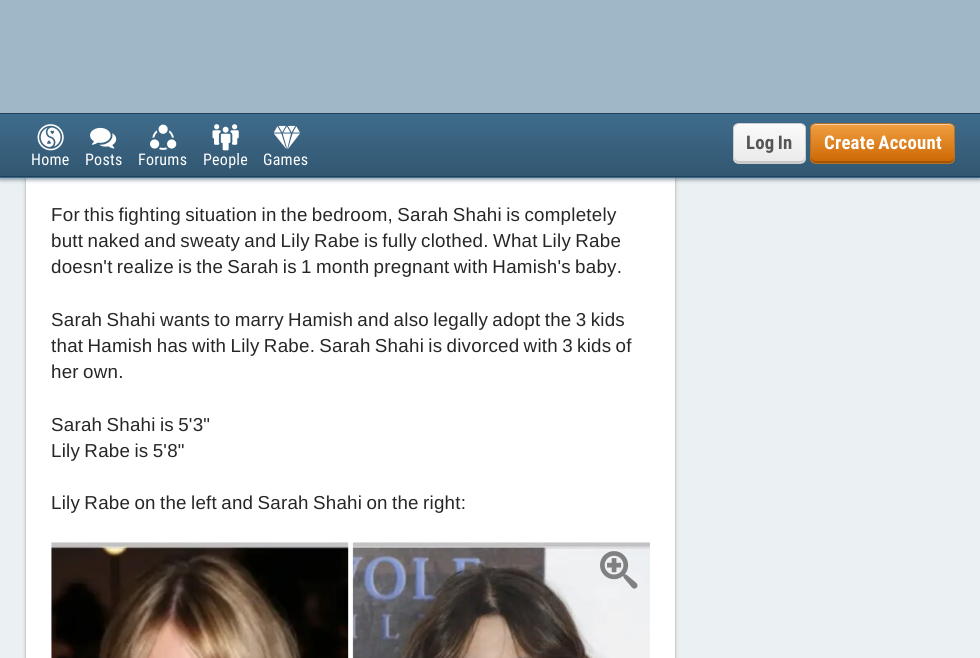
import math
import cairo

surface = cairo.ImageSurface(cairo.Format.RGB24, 980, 658)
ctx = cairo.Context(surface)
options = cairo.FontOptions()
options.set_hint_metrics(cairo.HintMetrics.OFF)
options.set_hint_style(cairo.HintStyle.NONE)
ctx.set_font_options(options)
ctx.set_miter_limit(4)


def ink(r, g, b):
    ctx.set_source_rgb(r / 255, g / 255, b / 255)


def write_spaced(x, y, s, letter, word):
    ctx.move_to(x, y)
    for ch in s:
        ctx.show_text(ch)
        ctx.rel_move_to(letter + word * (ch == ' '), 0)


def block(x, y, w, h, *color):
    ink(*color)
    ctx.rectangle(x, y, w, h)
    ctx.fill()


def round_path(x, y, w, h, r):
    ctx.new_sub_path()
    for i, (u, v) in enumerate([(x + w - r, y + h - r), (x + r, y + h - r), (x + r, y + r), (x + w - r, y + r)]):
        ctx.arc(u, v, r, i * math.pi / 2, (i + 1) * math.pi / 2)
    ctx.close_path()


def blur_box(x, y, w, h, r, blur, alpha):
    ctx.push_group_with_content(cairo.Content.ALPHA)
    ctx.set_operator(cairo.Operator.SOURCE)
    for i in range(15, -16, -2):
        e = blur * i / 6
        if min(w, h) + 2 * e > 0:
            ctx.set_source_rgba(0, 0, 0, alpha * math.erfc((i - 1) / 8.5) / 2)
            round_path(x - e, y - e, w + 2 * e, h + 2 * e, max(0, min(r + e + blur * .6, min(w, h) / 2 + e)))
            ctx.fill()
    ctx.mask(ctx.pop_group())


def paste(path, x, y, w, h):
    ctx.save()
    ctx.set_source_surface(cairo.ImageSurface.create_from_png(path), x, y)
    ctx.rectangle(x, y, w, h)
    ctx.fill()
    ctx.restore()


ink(235, 240, 242)
ctx.paint()
ink(128, 128, 128)
blur_box(25, -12, 651, 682, 6, 2, 0.3)
block(26, 178, 649, 480, 255, 255, 255)
ctx.rectangle(25.5, -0.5, 650, 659)
ink(204, 204, 204)
ctx.set_line_width(1)
ctx.stroke()
ink(38, 68, 89)
blur_box(0, 115, 980, 65, 0, 2, 0.5)
block(0, 0, 980, 113, 159, 183, 199)
gradient = cairo.LinearGradient(490, 114, 490, 176)
gradient.add_color_stop_rgba(0, 0.247, 0.424, 0.549, 1)
gradient.add_color_stop_rgba(1, 0.196, 0.341, 0.443, 1)
ctx.set_source(gradient)
ctx.rectangle(0, 114, 980, 62)
ctx.fill()
gradient = cairo.LinearGradient(490, 176, 490, 239)
gradient.add_color_stop_rgba(0, 0.247, 0.424, 0.549, 1)
gradient.add_color_stop_rgba(1, 0.196, 0.341, 0.443, 1)
ctx.set_source(gradient)
ctx.rectangle(0, 177, 980, 1)
ctx.fill()
block(0, 113, 980, 1, 31, 66, 92)
block(0, 176, 980, 1, 31, 66, 92)
ctx.save()
round_path(733, 123, 73, 41, 6)
ctx.clip()
gradient = cairo.LinearGradient(769, 124, 769, 163)
gradient.add_color_stop_rgba(0, 0.98, 0.98, 0.98, 1)
gradient.add_color_stop_rgba(1, 0.918, 0.918, 0.918, 1)
ctx.set_source(gradient)
ctx.rectangle(733, 124, 73, 39)
ctx.fill()
ctx.restore()
ink(199, 199, 199)
ctx.new_path()
ctx.move_to(734, 156)
ctx.curve_to(734, 165, 741, 163, 749, 163)
ctx.line_to(790, 163)
ctx.curve_to(798, 163, 805, 165, 805, 156)
ctx.curve_to(805, 159, 803, 161, 800, 161)
ctx.line_to(739, 161)
ctx.curve_to(736, 161, 734, 159, 734, 156)
ctx.close_path()
ctx.fill()
ink(255, 255, 255)
ctx.new_path()
ctx.move_to(739, 125)
ctx.line_to(800, 125)
ctx.curve_to(803, 125, 805, 127, 805, 130)
ctx.curve_to(805, 122, 796, 124, 790, 124)
ctx.line_to(749, 124)
ctx.curve_to(743, 124, 734, 122, 734, 130)
ctx.curve_to(734, 127, 736, 125, 739, 125)
ctx.close_path()
ctx.fill()
round_path(733.5, 123.5, 72, 40, 5.5)
ink(204, 204, 204)
ctx.stroke()
ctx.select_font_face("Roboto Condensed", cairo.FontSlant.NORMAL, cairo.FontWeight.BOLD)
ctx.set_font_size(18.75)
ink(85, 85, 85)
write_spaced(746, 149, "Log In", 0.25, -1.25)
ctx.save()
round_path(810, 123, 145, 41, 6)
ctx.clip()
gradient = cairo.LinearGradient(883, 124, 883, 163)
gradient.add_color_stop_rgba(0, 0.941, 0.624, 0.259, 1)
gradient.add_color_stop_rgba(1, 0.8, 0.4, 0, 1)
ctx.set_source(gradient)
ctx.rectangle(810, 124, 145, 39)
ctx.fill()
ctx.restore()
ctx.set_source_rgba(0, 0, 0, 0.2)
ctx.new_path()
ctx.move_to(811, 156)
ctx.line_to(811, 158)
ctx.curve_to(811, 161, 813, 163, 816, 163)
ctx.line_to(949, 163)
ctx.curve_to(952, 163, 954, 161, 954, 158)
ctx.line_to(954, 156)
ctx.curve_to(954, 159, 952, 161, 949, 161)
ctx.line_to(816, 161)
ctx.curve_to(813, 161, 811, 159, 811, 156)
ctx.close_path()
ctx.fill()
ink(247, 206, 160)
ctx.new_path()
ctx.move_to(816, 125)
ctx.line_to(949, 125)
ctx.curve_to(952, 125, 954, 127, 954, 130)
ctx.line_to(954, 129)
ctx.curve_to(954, 126, 952, 124, 949, 124)
ctx.line_to(816, 124)
ctx.curve_to(813, 124, 811, 126, 811, 129)
ctx.line_to(811, 130)
ctx.curve_to(811, 127, 813, 125, 816, 125)
ctx.close_path()
ctx.fill()
round_path(810.5, 123.5, 144, 40, 5.5)
ink(178, 116, 44)
ctx.stroke()
ink(255, 255, 255)
write_spaced(824, 149, "Create Account", 0.25, -1.25)
paste("pic1.png", 37, 124, 27, 27)
ctx.select_font_face("Roboto Condensed")
ctx.set_font_size(16)
write_spaced(31, 165, "Home", 0.25, 0)
paste("pic2.png", 90, 127, 27, 22)
write_spaced(85, 165, "Posts", 0.25, 0)
paste("pic3.png", 150, 124, 27, 26)
write_spaced(138, 165, "Forums", 0.25, 0)
paste("pic4.png", 212, 124, 27, 27)
write_spaced(203, 165, "People", 0.25, 0)
paste("pic5.png", 273, 125, 27, 24)
write_spaced(263, 165, "Games", 0.25, 0)
ctx.select_font_face("Liberation Sans")
ctx.set_font_size(18.75)
ink(38, 38, 38)
write_spaced(51, 221, "For this fighting situation in the bedroom, Sarah Shahi is completely", 0.25, -1.25)
write_spaced(51, 247, "butt naked and sweaty and Lily Rabe is fully clothed. What Lily Rabe", 0.25, -1.25)
write_spaced(51, 273, "doesn't realize is the Sarah is 1 month pregnant with Hamish's baby.", 0.25, -1.25)
write_spaced(51, 326, "Sarah Shahi wants to marry Hamish and also legally adopt the 3 kids", 0.25, -1.25)
write_spaced(51, 352, "that Hamish has with Lily Rabe. Sarah Shahi is divorced with 3 kids of", 0.25, -1.25)
write_spaced(51, 378, "her own.", 0.25, -1.25)
write_spaced(51, 431, "Sarah Shahi is 5'3\"", 0.25, -1.25)
write_spaced(51, 457, "Lily Rabe is 5'8\"", 0.25, -1.25)
write_spaced(51, 509, "Lily Rabe on the left and Sarah Shahi on the right:", 0.25, -1.25)
paste("pic6.png", 51, 542, 599, 116)
paste("pic7.png", 600, 551, 38, 38)
surface.write_to_png("screenshot.png")
